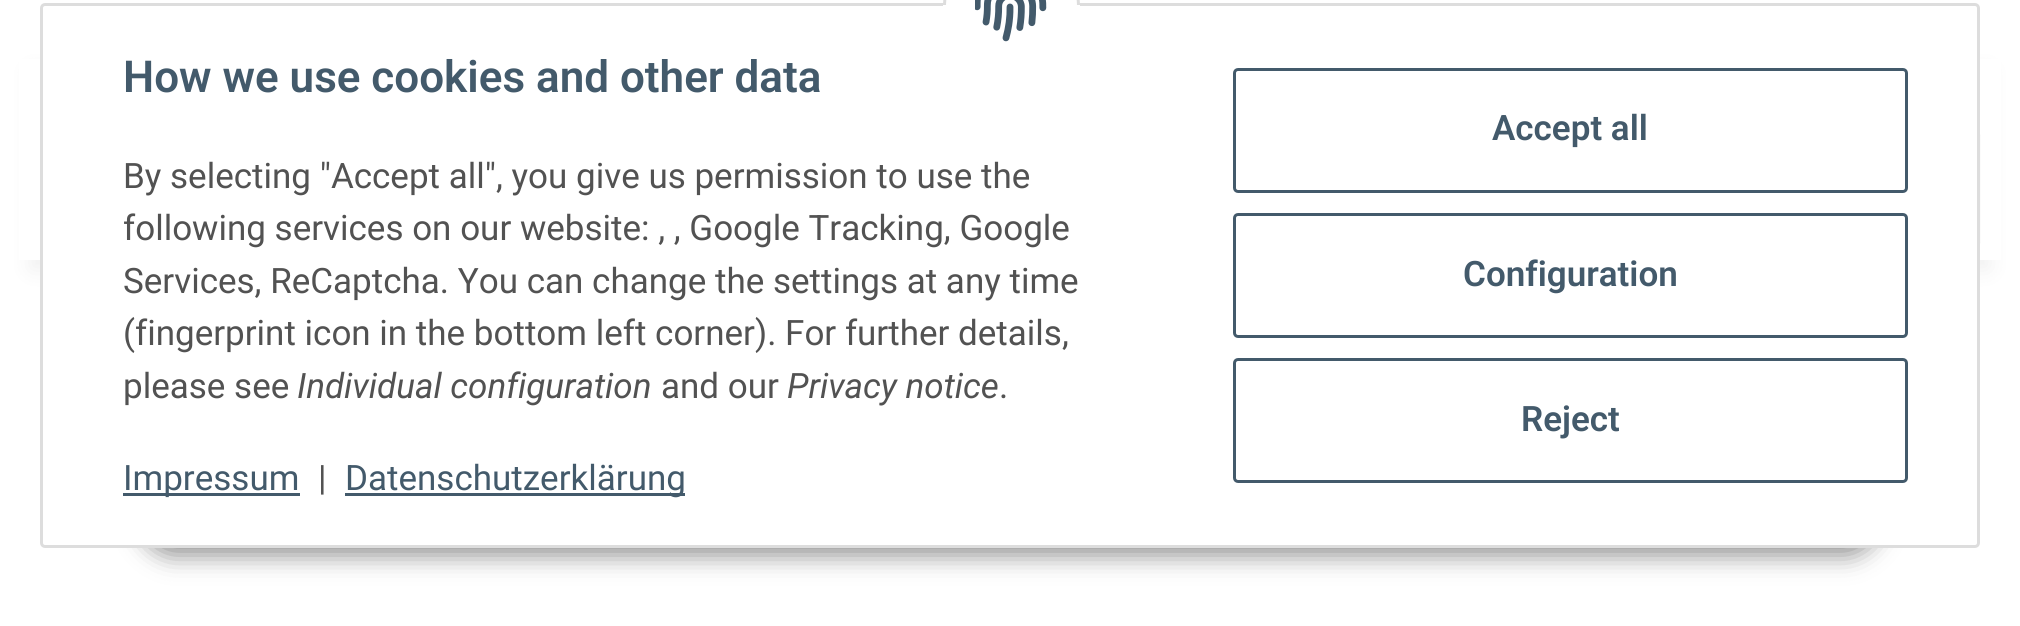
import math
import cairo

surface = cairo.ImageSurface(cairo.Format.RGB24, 2020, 626)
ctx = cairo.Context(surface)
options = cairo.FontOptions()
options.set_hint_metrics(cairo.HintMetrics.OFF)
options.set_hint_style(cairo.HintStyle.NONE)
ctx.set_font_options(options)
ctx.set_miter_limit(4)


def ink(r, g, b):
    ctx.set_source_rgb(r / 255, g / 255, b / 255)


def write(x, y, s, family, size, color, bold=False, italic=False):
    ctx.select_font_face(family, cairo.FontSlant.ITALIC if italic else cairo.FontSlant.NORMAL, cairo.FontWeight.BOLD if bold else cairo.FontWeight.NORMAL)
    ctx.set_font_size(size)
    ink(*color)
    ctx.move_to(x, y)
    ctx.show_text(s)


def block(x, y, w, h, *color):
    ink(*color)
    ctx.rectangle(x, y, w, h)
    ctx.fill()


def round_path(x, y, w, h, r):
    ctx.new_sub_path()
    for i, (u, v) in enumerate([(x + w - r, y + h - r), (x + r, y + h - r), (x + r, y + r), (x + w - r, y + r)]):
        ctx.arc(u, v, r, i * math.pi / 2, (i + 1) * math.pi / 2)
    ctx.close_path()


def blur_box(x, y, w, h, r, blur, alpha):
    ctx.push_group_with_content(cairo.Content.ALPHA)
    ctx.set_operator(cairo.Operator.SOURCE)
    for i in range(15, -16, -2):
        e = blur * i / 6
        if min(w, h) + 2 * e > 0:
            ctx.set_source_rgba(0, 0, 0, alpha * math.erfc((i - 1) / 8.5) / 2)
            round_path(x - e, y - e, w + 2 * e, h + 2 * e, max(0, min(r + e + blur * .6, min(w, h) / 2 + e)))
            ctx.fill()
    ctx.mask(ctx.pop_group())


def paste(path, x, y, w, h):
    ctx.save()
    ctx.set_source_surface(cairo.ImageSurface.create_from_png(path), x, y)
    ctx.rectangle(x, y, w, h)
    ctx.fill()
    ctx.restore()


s1 = dict(family="Roboto SemiBold", size=44, color=(67, 90, 107))
s2 = dict(family="Roboto", size=35, color=(82, 82, 82))
s3 = dict(family="Roboto", size=35, color=(82, 82, 82), italic=True)
s4 = dict(family="Roboto", size=35, color=(67, 90, 107))
s5 = dict(family="Roboto SemiBold", size=35, color=(67, 90, 107))

ink(255, 255, 255)
ctx.paint()
ink(0, 0, 0)
blur_box(30, 70, 1960, 200, 0, 11, 0.06)
block(19, 59, 1982, 201, 255, 255, 255)
ink(0, 0, 0)
blur_box(1865, 135, 115, 108, 0, 1, 0.07)
blur_box(140, 475, 1740, 80, 40, 12.5, 0.45)
ink(255, 255, 255)
round_path(41.5, 4.5, 1937, 542, 3.5)
ctx.fill_preserve()
ink(221, 221, 221)
ctx.set_line_width(3)
ctx.stroke()
ink(255, 255, 255)
ctx.arc(1011.5, 6.5, 67, 0, 2 * math.pi)
ctx.fill_preserve()
ink(221, 221, 221)
ctx.stroke()
block(943, 5, 137, 70, 255, 255, 255)
paste("pic1.png", 975, 0, 72, 42)
write(123, 92, "How we use cookies and other data", **s1)
write(123, 188, "By selecting \"Accept all\", you give us permission to use the", **s2)
write(123, 240, "following services on our website: , , Google Tracking, Google", **s2)
write(123, 293, "Services, ReCaptcha. You can change the settings at any time", **s2)
write(123, 345, "(fingerprint icon in the bottom left corner). For further details,", **s2)
write(123, 398, "please see", **s2)
write(297, 398, "Individual configuration", **s3)
write(661, 398, "and our", **s2)
write(787, 398, "Privacy notice", **s3)
write(999, 398, ".", **s2)
block(123, 493, 177, 3, 67, 90, 107)
write(123, 490, "Impressum", **s4)
write(318, 490, "|", **s2)
block(345, 493, 340, 3, 67, 90, 107)
write(345, 490, "Datenschutzerklärung", **s4)
round_path(1234.5, 69.5, 672, 122, 3.5)
ctx.stroke()
write(1492, 140, "Accept all", **s5)
round_path(1234.5, 214.5, 672, 122, 3.5)
ctx.stroke()
write(1463, 286, "Configuration", **s5)
round_path(1234.5, 359.5, 672, 122, 3.5)
ctx.stroke()
write(1521, 431, "Reject", **s5)
surface.write_to_png("screenshot.png")
